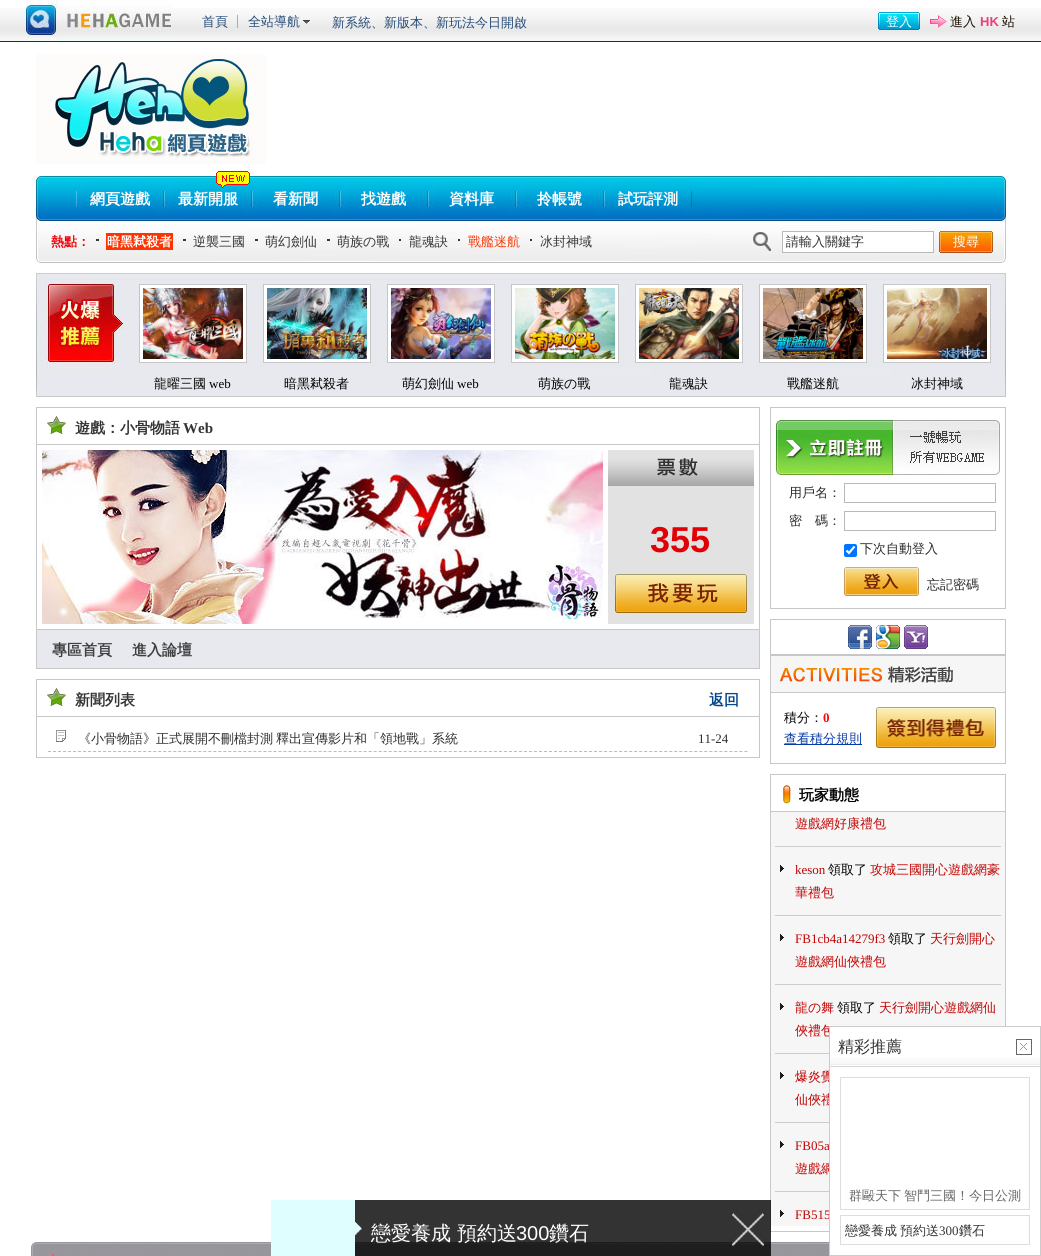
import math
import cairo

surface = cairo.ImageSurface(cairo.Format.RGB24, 1041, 1256)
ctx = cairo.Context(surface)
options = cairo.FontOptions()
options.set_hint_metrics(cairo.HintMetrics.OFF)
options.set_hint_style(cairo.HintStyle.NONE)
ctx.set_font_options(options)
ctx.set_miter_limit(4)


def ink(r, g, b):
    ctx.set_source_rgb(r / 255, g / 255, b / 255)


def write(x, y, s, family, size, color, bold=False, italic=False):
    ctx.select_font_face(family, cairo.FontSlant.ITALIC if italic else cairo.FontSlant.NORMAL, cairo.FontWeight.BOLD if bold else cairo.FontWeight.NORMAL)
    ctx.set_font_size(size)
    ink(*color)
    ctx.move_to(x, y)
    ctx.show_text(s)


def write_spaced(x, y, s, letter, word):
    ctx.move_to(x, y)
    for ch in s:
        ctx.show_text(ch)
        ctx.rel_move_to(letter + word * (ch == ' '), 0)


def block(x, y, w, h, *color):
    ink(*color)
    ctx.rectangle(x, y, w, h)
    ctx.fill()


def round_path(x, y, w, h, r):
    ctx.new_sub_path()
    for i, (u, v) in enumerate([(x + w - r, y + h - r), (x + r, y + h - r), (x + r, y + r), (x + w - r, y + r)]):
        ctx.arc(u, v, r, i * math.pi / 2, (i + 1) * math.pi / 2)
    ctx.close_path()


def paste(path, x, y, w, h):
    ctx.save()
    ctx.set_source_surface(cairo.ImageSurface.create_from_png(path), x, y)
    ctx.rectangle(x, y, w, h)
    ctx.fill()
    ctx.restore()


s1 = dict(family="WenQuanYi Zen Hei Medium", size=13, color=(37, 74, 119))
s2 = dict(family="WenQuanYi Zen Hei Medium", size=13, color=(255, 255, 255))
s3 = dict(family="WenQuanYi Zen Hei Medium", size=13, color=(26, 14, 1))
s4 = dict(family="Liberation Sans", size=13, color=(239, 61, 124), bold=True)
s5 = dict(family="WenQuanYi Zen Hei", size=15, color=(255, 255, 255), bold=True)
s6 = dict(family="WenQuanYi Zen Hei", size=13, color=(236, 0, 4), bold=True)
s7 = dict(family="WenQuanYi Zen Hei", size=13, color=(255, 255, 255), bold=True)
s8 = dict(family="WenQuanYi Zen Hei Medium", size=13, color=(52, 52, 52))
s9 = dict(family="WenQuanYi Zen Hei Medium", size=13, color=(253, 59, 7))
s10 = dict(family="WenQuanYi Zen Hei Medium", size=13, color=(3, 3, 3))
s11 = dict(family="Liberation Serif", size=13, color=(3, 3, 3))
s12 = dict(family="WenQuanYi Zen Hei", size=15, color=(52, 52, 52), bold=True)
s13 = dict(family="Liberation Serif", size=15, color=(52, 52, 52), bold=True)
s14 = dict(family="Liberation Sans", size=36, color=(225, 0, 5), bold=True)
s15 = dict(family="WenQuanYi Zen Hei", size=15, color=(62, 64, 63), bold=True)
s16 = dict(family="WenQuanYi Zen Hei", size=15, color=(5, 72, 140), bold=True)
s17 = dict(family="Liberation Serif", size=13, color=(46, 46, 46))
s18 = dict(family="WenQuanYi Zen Hei Medium", size=13, color=(42, 42, 40))
s19 = dict(family="Liberation Serif", size=13, color=(252, 6, 7), bold=True)
s20 = dict(family="WenQuanYi Zen Hei Medium", size=13, color=(6, 58, 170))
s21 = dict(family="WenQuanYi Zen Hei", size=15, color=(3, 3, 3), bold=True)
s22 = dict(family="WenQuanYi Zen Hei Medium", size=13, color=(193, 5, 4))
s23 = dict(family="Liberation Serif", size=13, color=(193, 5, 4))
s24 = dict(family="WenQuanYi Zen Hei Medium", size=20, color=(255, 255, 255))
s25 = dict(family="Liberation Sans", size=20, color=(255, 255, 255))
s26 = dict(family="WenQuanYi Zen Hei Medium", size=16, color=(52, 52, 52))
s27 = dict(family="Liberation Serif", size=13, color=(52, 52, 52))

ink(255, 255, 255)
ctx.paint()
paste("pic1.png", 0, 8, 1041, 34)
paste("pic2.png", 26, 0, 146, 42)
block(237, 15, 1, 13, 171, 172, 174)
write(202, 26, "首頁", **s1)
paste("pic3.png", 303, 20, 7, 4)
write(248, 26, "全站導航", **s1)
write(332, 27, "新系統、新版本、新玩法今日開啟", **s1)
paste("pic4.png", 878, 12, 42, 18)
write(886, 26, "登入", **s2)
paste("pic5.png", 930, 15, 17, 13)
write(950, 26, "進入", **s3)
write(980, 26, "HK", **s4)
write(1002, 26, "站", **s3)
paste("pic6.png", 36, 54, 230, 110)
paste("pic7.png", 36, 176, 970, 87)
paste("pic9.png", 164, 178, 88, 43)
paste("pic8.png", 216, 171, 34, 17)
paste("pic9.png", 76, 178, 88, 43)
write(90, 204, "網頁遊戲", **s5)
write(178, 204, "最新開服", **s5)
paste("pic10.png", 252, 176, 88, 45)
write(273, 204, "看新聞", **s5)
paste("pic9.png", 340, 178, 88, 43)
write(361, 204, "找遊戲", **s5)
paste("pic9.png", 428, 178, 88, 43)
write(449, 204, "資料庫", **s5)
paste("pic9.png", 516, 178, 88, 43)
write(537, 204, "拎帳號", **s5)
paste("pic9.png", 604, 178, 88, 43)
write(618, 204, "試玩評測", **s5)
write(51, 246, "熱點：", **s6)
block(96, 239, 3, 2, 57, 57, 57)
block(106, 233, 67, 17, 255, 51, 0)
write(107, 246, "暗黑弒殺者", **s7)
block(183, 239, 3, 2, 57, 57, 57)
write(193, 246, "逆襲三國", **s8)
block(255, 239, 3, 2, 57, 57, 57)
write(265, 246, "萌幻劍仙", **s8)
block(327, 239, 3, 2, 57, 57, 57)
write(337, 246, "萌族の戰", **s8)
block(399, 239, 2, 2, 57, 57, 57)
write(409, 246, "龍魂訣", **s8)
block(458, 239, 2, 2, 57, 57, 57)
write(468, 246, "戰艦迷航", **s9)
block(530, 239, 2, 2, 57, 57, 57)
write(540, 246, "冰封神域", **s8)
paste("pic11.png", 753, 232, 18, 19)
ink(255, 255, 255)
ctx.rectangle(782.5, 231.5, 151, 21)
ctx.fill_preserve()
ink(186, 186, 186)
ctx.set_line_width(1)
ctx.stroke()
write(786, 246, "請輸入關鍵字", **s8)
paste("pic12.png", 939, 231, 54, 22)
write(953, 246, "搜尋", **s2)
paste("pic13.png", 36, 273, 970, 124)
ctx.rectangle(139.5, 284.5, 107, 78)
ctx.fill_preserve()
ink(199, 197, 198)
ctx.stroke()
paste("pic14.png", 143, 288, 100, 71)
write(154, 388, "龍曜三國", **s10)
write(209, 388, "web", **s11)
ink(255, 255, 255)
ctx.rectangle(263.5, 284.5, 107, 78)
ctx.fill_preserve()
ink(199, 197, 198)
ctx.stroke()
paste("pic15.png", 267, 288, 100, 71)
write(284, 388, "暗黑弒殺者", **s10)
ink(255, 255, 255)
ctx.rectangle(387.5, 284.5, 107, 78)
ctx.fill_preserve()
ink(199, 197, 198)
ctx.stroke()
paste("pic16.png", 391, 288, 100, 71)
write(402, 388, "萌幻劍仙", **s10)
write(457, 388, "web", **s11)
ink(255, 255, 255)
ctx.rectangle(511.5, 284.5, 107, 78)
ctx.fill_preserve()
ink(199, 197, 198)
ctx.stroke()
paste("pic17.png", 515, 288, 100, 71)
write(538, 388, "萌族の戰", **s10)
ink(255, 255, 255)
ctx.rectangle(635.5, 284.5, 107, 78)
ctx.fill_preserve()
ink(199, 197, 198)
ctx.stroke()
paste("pic18.png", 639, 288, 100, 71)
write(669, 388, "龍魂訣", **s10)
ink(255, 255, 255)
ctx.rectangle(759.5, 284.5, 107, 78)
ctx.fill_preserve()
ink(199, 197, 198)
ctx.stroke()
paste("pic19.png", 763, 288, 100, 71)
write(787, 388, "戰艦迷航", **s10)
ink(255, 255, 255)
ctx.rectangle(883.5, 284.5, 107, 78)
ctx.fill_preserve()
ink(199, 197, 198)
ctx.stroke()
paste("pic20.png", 887, 288, 100, 71)
write(911, 388, "冰封神域", **s10)
ctx.rectangle(36.5, 407.5, 723, 261)
ink(199, 199, 201)
ctx.stroke()
paste("pic21.png", 47, 416, 19, 18)
write(75, 433, "遊戲：小骨物語", **s12)
write(183, 433, "Web", **s13)
block(37, 444, 722, 1, 199, 199, 201)
block(37, 629, 722, 1, 199, 199, 201)
paste("pic22.png", 42, 450, 561, 174)
paste("pic23.png", 608, 450, 146, 174)
write(650, 552, "355", **s14)
paste("pic24.png", 615, 574, 132, 39)
block(37, 630, 722, 38, 232, 233, 238)
write(52, 655, "專區首頁", **s15)
write(132, 655, "進入論壇", **s15)
ctx.rectangle(36.5, 679.5, 723, 78)
ink(199, 199, 201)
ctx.stroke()
paste("pic21.png", 47, 688, 19, 18)
write(75, 705, "新聞列表", **s12)
write(709, 705, "返回", **s16)
block(37, 716, 722, 1, 199, 199, 201)
ctx.new_path()
ctx.move_to(48, 751.5)
ctx.line_to(748, 751.5)
ink(188, 188, 188)
ctx.set_dash([3, 2.01])
ctx.stroke()
paste("pic25.png", 56, 730, 10, 12)
ctx.select_font_face("WenQuanYi Zen Hei Medium")
ctx.set_font_size(13)
ink(46, 46, 46)
write_spaced(78, 743, "《小骨物語》正式展開不刪檔封測 釋出宣傳影片和「領地戰」系統", 0, -1)
write(698, 743, "11-24", **s17)
ctx.rectangle(770.5, 407.5, 235, 201)
ink(199, 199, 201)
ctx.set_dash([])
ctx.stroke()
paste("pic26.png", 776, 420, 224, 55)
write(789, 497, "用戶名：", **s18)
ctx.rectangle(844.5, 483.5, 151, 19)
ink(186, 186, 186)
ctx.stroke()
write(789, 525, "密　碼：", **s18)
ctx.rectangle(844.5, 511.5, 151, 19)
ink(186, 186, 186)
ctx.stroke()
ink(0, 117, 255)
round_path(844, 544, 13, 13, 2)
ctx.fill()
ctx.new_path()
ctx.move_to(846.5, 550.5)
ctx.line_to(849, 553)
ctx.line_to(854.5, 546.5)
ink(255, 255, 255)
ctx.set_line_width(2.1)
ctx.stroke()
write(860, 553, "下次自動登入", **s18)
paste("pic27.png", 844, 567, 75, 29)
write(927, 589, "忘記密碼", **s18)
ctx.rectangle(770.5, 619.5, 235, 35)
ink(199, 199, 201)
ctx.set_line_width(1)
ctx.stroke()
paste("pic28.png", 848, 625, 24, 24)
paste("pic29.png", 876, 625, 24, 24)
paste("pic30.png", 904, 625, 24, 24)
block(770, 655, 236, 1, 199, 199, 201)
block(1005, 655, 1, 109, 199, 199, 201)
block(770, 655, 1, 109, 199, 199, 201)
paste("pic31.png", 771, 656, 234, 36)
block(771, 692, 234, 1, 199, 199, 201)
block(771, 763, 234, 1, 199, 199, 201)
write(784, 722, "積分：", **s10)
write(823, 722, "0", **s19)
block(784, 744, 78, 1, 6, 58, 170)
write(784, 743, "查看積分規則", **s20)
paste("pic32.png", 876, 707, 120, 41)
ctx.rectangle(770.5, 774.5, 235, 457)
ink(199, 199, 201)
ctx.stroke()
paste("pic33.png", 783, 785, 8, 19)
block(771, 811, 234, 1, 199, 199, 201)
write(799, 800, "玩家動態", **s21)
block(771, 812, 234, 414, 246, 246, 246)
block(775, 846, 226, 1, 204, 202, 203)
write(795, 828, "遊戲網好康禮包", **s22)
paste("pic34.png", 780, 865, 4, 7)
block(775, 915, 226, 1, 204, 202, 203)
write(795, 874, "keson", **s23)
write(828, 874, "領取了", **s10)
write(870, 874, "攻城三國開心遊戲網豪", **s22)
write(795, 897, "華禮包", **s22)
paste("pic34.png", 780, 934, 4, 7)
block(775, 984, 226, 1, 204, 202, 203)
write(795, 943, "FB1cb4a14279f3", **s23)
write(888, 943, "領取了", **s10)
write(930, 943, "天行劍開心", **s22)
write(795, 966, "遊戲網仙俠禮包", **s22)
paste("pic34.png", 780, 1003, 4, 7)
block(775, 1053, 54, 1, 204, 202, 203)
write(795, 1012, "龍の舞", **s22)
write(837, 1012, "領取了", **s10)
write(879, 1012, "天行劍開心遊戲網仙", **s22)
write(795, 1035, "俠禮包", **s22)
paste("pic34.png", 780, 1072, 4, 7)
block(775, 1122, 54, 1, 204, 202, 203)
write(795, 1081, "爆炎覺", **s22)
write(795, 1104, "仙俠禮", **s22)
paste("pic34.png", 780, 1141, 4, 7)
block(775, 1191, 54, 1, 204, 202, 203)
write(795, 1150, "FB05a", **s23)
write(795, 1173, "遊戲網", **s22)
paste("pic34.png", 780, 1210, 4, 7)
write(795, 1219, "FB515", **s23)
paste("pic38.png", 31, 1242, 798, 14)
paste("pic35.png", 271, 1200, 500, 56)
write(371, 1240, "戀愛養成 預約送", **s24)
write(516, 1240, "300", **s25)
write(549, 1240, "鑽石", **s24)
block(830, 1027, 176, 205, 255, 255, 255)
ctx.rectangle(829.5, 1026.5, 211, 229)
ink(204, 204, 204)
ctx.stroke()
paste("pic36.png", 830, 1058, 210, 9)
write(838, 1052, "精彩推薦", **s26)
paste("pic37.png", 1016, 1039, 16, 16)
ctx.rectangle(840.5, 1077.5, 189, 132)
ink(221, 221, 221)
ctx.stroke()
ctx.set_font_size(13)
ink(102, 102, 102)
write_spaced(849, 1200, "群毆天下 智鬥三國！今日公測", 0, -1)
ctx.rectangle(840.5, 1215.5, 189, 29)
ink(221, 221, 221)
ctx.stroke()
ink(52, 52, 52)
write_spaced(845, 1235, "戀愛養成 預約送", 0, -1)
write(939, 1235, "300", **s27)
write(959, 1235, "鑽石", **s8)
surface.write_to_png("screenshot.png")
